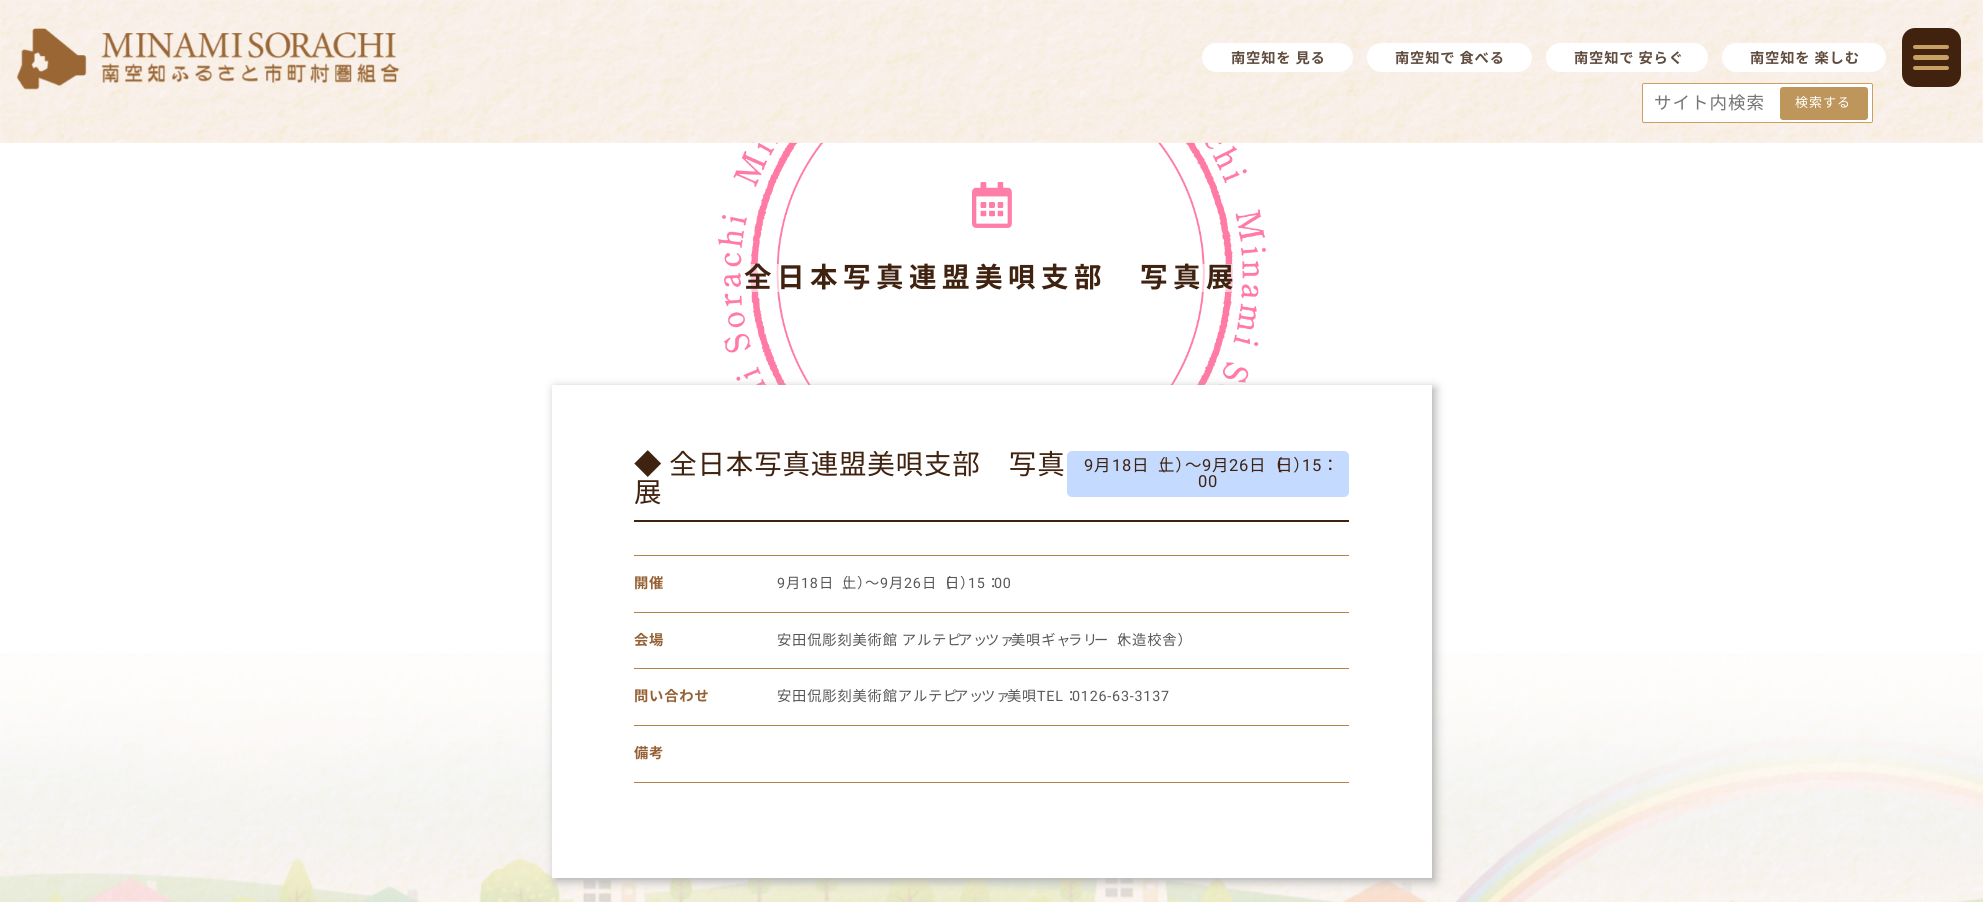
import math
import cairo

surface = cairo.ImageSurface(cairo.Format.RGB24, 1983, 902)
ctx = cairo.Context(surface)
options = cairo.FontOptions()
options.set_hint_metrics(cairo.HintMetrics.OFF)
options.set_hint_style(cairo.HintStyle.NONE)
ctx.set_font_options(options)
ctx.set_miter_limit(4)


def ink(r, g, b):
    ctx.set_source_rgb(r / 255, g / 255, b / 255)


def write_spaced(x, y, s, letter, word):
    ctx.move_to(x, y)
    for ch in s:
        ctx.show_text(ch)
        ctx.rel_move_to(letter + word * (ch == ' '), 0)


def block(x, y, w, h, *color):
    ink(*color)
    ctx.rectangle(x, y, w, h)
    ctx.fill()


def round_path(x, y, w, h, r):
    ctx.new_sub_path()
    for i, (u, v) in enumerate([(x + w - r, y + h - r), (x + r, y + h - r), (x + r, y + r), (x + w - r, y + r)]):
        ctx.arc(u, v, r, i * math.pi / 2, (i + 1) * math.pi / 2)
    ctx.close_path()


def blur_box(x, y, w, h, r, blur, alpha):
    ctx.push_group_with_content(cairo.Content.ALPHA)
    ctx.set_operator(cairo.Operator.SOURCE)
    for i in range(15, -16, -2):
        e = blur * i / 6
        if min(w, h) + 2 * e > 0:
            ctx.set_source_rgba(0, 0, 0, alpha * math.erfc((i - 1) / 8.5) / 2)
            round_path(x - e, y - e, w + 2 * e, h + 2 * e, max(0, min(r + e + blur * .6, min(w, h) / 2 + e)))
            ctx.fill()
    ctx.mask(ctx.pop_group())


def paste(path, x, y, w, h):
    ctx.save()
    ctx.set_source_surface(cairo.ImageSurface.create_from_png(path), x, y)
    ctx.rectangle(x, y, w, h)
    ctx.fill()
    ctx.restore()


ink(255, 255, 255)
ctx.paint()
paste("pic4.png", 718, 142, 548, 243)
paste("pic1.png", 0, 0, 1983, 143)
paste("pic2.png", 16, 28, 384, 62)
ink(255, 255, 255)
round_path(1202, 43, 151, 29, 14.5)
ctx.fill()
ctx.select_font_face("Noto Sans JP", cairo.FontSlant.NORMAL, cairo.FontWeight.BOLD)
ctx.set_font_size(14.3)
ink(96, 76, 63)
write_spaced(1231, 63, "南空知を 見る", 0.8, 0)
ink(255, 255, 255)
round_path(1367, 43, 165, 29, 14.5)
ctx.fill()
ink(96, 76, 63)
write_spaced(1395, 63, "南空知で 食べる", 0.8, 0)
ink(255, 255, 255)
round_path(1546, 43, 162, 29, 14.5)
ctx.fill()
ink(96, 76, 63)
write_spaced(1574, 63, "南空知で 安らぐ", 0.8, 0)
ink(255, 255, 255)
round_path(1722, 43, 164, 29, 14.5)
ctx.fill()
ink(96, 76, 63)
write_spaced(1750, 63, "南空知を 楽しむ", 0.8, 0)
ink(64, 34, 15)
round_path(1902, 28, 59, 59, 13)
ctx.fill()
ink(201, 160, 99)
round_path(1913, 45, 36, 4, 2)
ctx.fill()
round_path(1913, 55, 36, 5, 2.5)
ctx.fill()
round_path(1913, 66, 36, 4, 2)
ctx.fill()
ink(255, 255, 255)
round_path(1642.5, 83.5, 230, 39, 1.5)
ctx.fill_preserve()
ink(201, 160, 99)
ctx.set_line_width(1)
ctx.stroke()
ctx.select_font_face("Noto Sans JP")
ctx.set_font_size(17.5)
ink(117, 117, 117)
write_spaced(1654, 109, "サイト内検索", 1, 0)
ink(190, 150, 92)
round_path(1780, 87, 88, 33, 3)
ctx.fill()
ctx.set_font_size(13)
ink(255, 255, 255)
write_spaced(1795, 107, "検索する", 1, 0)
paste("pic3.png", 0, 653, 1983, 249)
ctx.set_source_rgba(1, 1, 1, 0.61)
ctx.rectangle(750, 264, 483, 28)
ctx.fill()
paste("pic5.png", 972, 182, 40, 46)
ctx.select_font_face("Noto Sans JP", cairo.FontSlant.NORMAL, cairo.FontWeight.BOLD)
ctx.set_font_size(27.5)
ink(64, 34, 16)
write_spaced(744, 287, "全日本写真連盟美唄支部　写真展", 5.5, 0)
ink(173, 173, 173)
blur_box(555, 388, 880, 493, 0, 5, 1)
block(552, 385, 880, 493, 255, 255, 255)
block(634, 520, 715, 2, 64, 34, 16)
ctx.select_font_face("Noto Sans JP")
write_spaced(634, 474, "◆ 全日本写真連盟美唄支部　写真", 0.8, 0)
write_spaced(634, 502, "展", 0.8, 0)
ink(196, 219, 255)
round_path(1067, 451, 282, 46, 5)
ctx.fill()
ctx.select_font_face("Roboto")
ctx.set_font_size(16.5)
ink(64, 34, 16)
write_spaced(1084, 471, "9", 0.8, 0)
ctx.select_font_face("Noto Sans JP")
write_spaced(1094, 471, "月", 0.8, 0)
ctx.select_font_face("Roboto")
write_spaced(1112, 471, "18", 0.8, 0)
ctx.select_font_face("Noto Sans JP")
write_spaced(1132, 471, "日（", 0.8, 0)
write_spaced(1158, 471, "土）", 0.8, 0)
write_spaced(1185, 471, "～", 0.8, 0)
ctx.select_font_face("Roboto")
write_spaced(1202, 471, "9", 0.8, 0)
ctx.select_font_face("Noto Sans JP")
write_spaced(1212, 471, "月", 0.8, 0)
ctx.select_font_face("Roboto")
write_spaced(1229, 471, "26", 0.8, 0)
ctx.select_font_face("Noto Sans JP")
write_spaced(1249, 471, "日（", 0.8, 0)
write_spaced(1276, 471, "日）", 0.8, 0)
ctx.select_font_face("Roboto")
write_spaced(1302, 471, "15", 0.8, 0)
ctx.select_font_face("Noto Sans JP")
write_spaced(1322, 471, "：", 0.8, 0)
ctx.select_font_face("Roboto")
write_spaced(1198, 487, "00", 0.8, 0)
block(634, 555, 715, 1, 178, 130, 71)
block(634, 612, 715, 1, 178, 130, 71)
ctx.select_font_face("Noto Sans JP", cairo.FontSlant.NORMAL, cairo.FontWeight.BOLD)
ctx.set_font_size(14.3)
ink(149, 97, 52)
write_spaced(634, 588, "開催", 0.8, 0)
ctx.select_font_face("Roboto")
ink(88, 88, 88)
write_spaced(777, 588, "9", 0.8, 0)
ctx.select_font_face("Noto Sans JP")
write_spaced(786, 588, "月", 0.8, 0)
ctx.select_font_face("Roboto")
write_spaced(801, 588, "18", 0.8, 0)
ctx.select_font_face("Noto Sans JP")
write_spaced(819, 588, "日（", 0.8, 0)
write_spaced(842, 588, "土）", 0.8, 0)
write_spaced(865, 588, "～", 0.8, 0)
ctx.select_font_face("Roboto")
write_spaced(880, 588, "9", 0.8, 0)
ctx.select_font_face("Noto Sans JP")
write_spaced(889, 588, "月", 0.8, 0)
ctx.select_font_face("Roboto")
write_spaced(904, 588, "26", 0.8, 0)
ctx.select_font_face("Noto Sans JP")
write_spaced(922, 588, "日（", 0.8, 0)
write_spaced(945, 588, "日）", 0.8, 0)
ctx.select_font_face("Roboto")
write_spaced(968, 588, "15", 0.8, 0)
ctx.select_font_face("Noto Sans JP")
write_spaced(986, 588, "：", 0.8, 0)
ctx.select_font_face("Roboto")
write_spaced(994, 588, "00", 0.8, 0)
block(634, 668, 715, 1, 178, 130, 71)
ctx.select_font_face("Noto Sans JP", cairo.FontSlant.NORMAL, cairo.FontWeight.BOLD)
ink(149, 97, 52)
write_spaced(634, 645, "会場", 0.8, 0)
ctx.select_font_face("Noto Sans JP")
ink(88, 88, 88)
write_spaced(777, 645, "安田侃彫刻美術館 アルテピ", 0.8, 0)
write_spaced(958, 645, "アッ", 0.8, 0)
write_spaced(985, 645, "ツァ", 0.8, 0)
write_spaced(1011, 645, "美唄ギャ", 0.8, 0)
write_spaced(1068, 645, "ラリ", 0.8, 0)
write_spaced(1094, 645, "ー（", 0.8, 0)
write_spaced(1117, 645, "木造校舎）", 0.8, 0)
block(634, 725, 715, 1, 178, 130, 71)
ctx.select_font_face("Noto Sans JP", cairo.FontSlant.NORMAL, cairo.FontWeight.BOLD)
ink(149, 97, 52)
write_spaced(634, 701, "問い合わせ", 0.8, 0)
ctx.select_font_face("Noto Sans JP")
ink(88, 88, 88)
write_spaced(777, 701, "安田侃彫刻美術館アルテピ", 0.8, 0)
write_spaced(954, 701, "アッ", 0.8, 0)
write_spaced(981, 701, "ツァ", 0.8, 0)
write_spaced(1007, 701, "美唄", 0.8, 0)
ctx.select_font_face("Roboto")
write_spaced(1037, 701, "TEL", 0.8, 0)
ctx.select_font_face("Noto Sans JP")
write_spaced(1064, 701, "：", 0.8, 0)
ctx.select_font_face("Roboto")
write_spaced(1072, 701, "0126-63-3137", 0.8, 0)
block(634, 782, 715, 1, 178, 130, 71)
ctx.select_font_face("Noto Sans JP", cairo.FontSlant.NORMAL, cairo.FontWeight.BOLD)
ink(149, 97, 52)
write_spaced(634, 758, "備考", 0.8, 0)
surface.write_to_png("screenshot.png")
